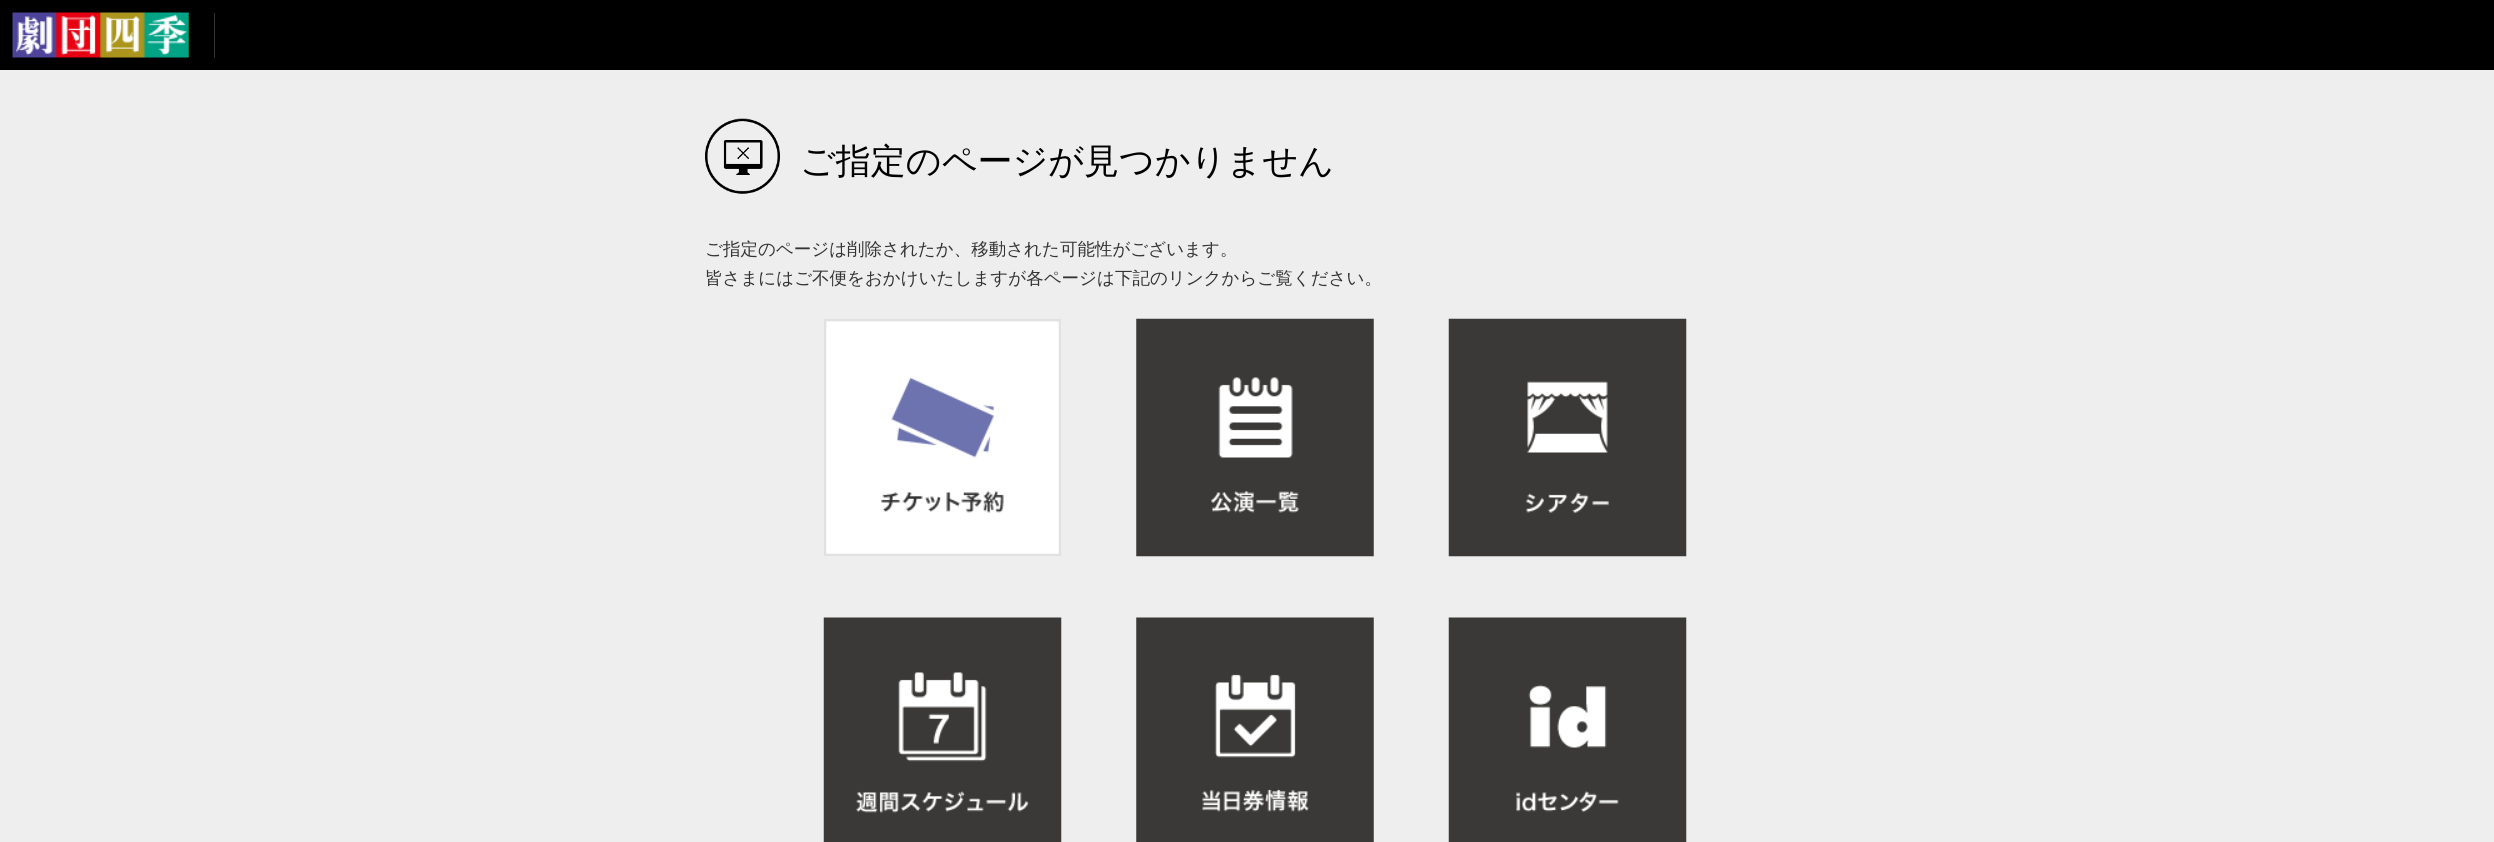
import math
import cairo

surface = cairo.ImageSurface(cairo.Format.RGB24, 2494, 842)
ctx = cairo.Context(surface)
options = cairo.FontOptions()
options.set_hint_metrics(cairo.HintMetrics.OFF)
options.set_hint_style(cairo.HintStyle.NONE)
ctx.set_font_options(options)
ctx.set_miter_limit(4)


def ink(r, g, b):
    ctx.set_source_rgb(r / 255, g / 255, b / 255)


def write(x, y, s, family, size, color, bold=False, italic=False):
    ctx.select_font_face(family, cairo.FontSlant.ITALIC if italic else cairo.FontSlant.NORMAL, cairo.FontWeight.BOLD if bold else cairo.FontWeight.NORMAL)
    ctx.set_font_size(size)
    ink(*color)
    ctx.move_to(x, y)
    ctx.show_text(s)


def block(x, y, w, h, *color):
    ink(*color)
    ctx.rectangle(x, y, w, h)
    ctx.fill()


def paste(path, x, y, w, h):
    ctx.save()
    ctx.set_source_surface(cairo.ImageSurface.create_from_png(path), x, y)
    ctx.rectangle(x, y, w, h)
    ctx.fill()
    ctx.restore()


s1 = dict(family="WenQuanYi Zen Hei Medium", size=35, color=(0, 0, 0))
s2 = dict(family="WenQuanYi Zen Hei Medium", size=17.5, color=(51, 51, 51))

ink(238, 238, 238)
ctx.paint()
block(0, 0, 2494, 70, 0, 0, 0)
block(214, 13, 1, 45, 51, 51, 51)
paste("pic1.png", 12, 12, 177, 46)
paste("pic2.png", 705, 118, 75, 76)
write(800, 173, "ご指定のページが見つかりません", **s1)
write(705, 255, "ご指定のページは削除されたか、移動された可能性がございます。", **s2)
write(705, 284, "皆さまにはご不便をおかけいたしますが各ページは下記のリンクからご覧ください。", **s2)
paste("pic3.png", 824, 319, 237, 237)
paste("pic4.png", 1136, 318, 238, 239)
paste("pic5.png", 1448, 318, 239, 239)
paste("pic6.png", 823, 617, 239, 225)
paste("pic7.png", 1136, 617, 238, 225)
paste("pic8.png", 1448, 617, 239, 225)
surface.write_to_png("screenshot.png")
